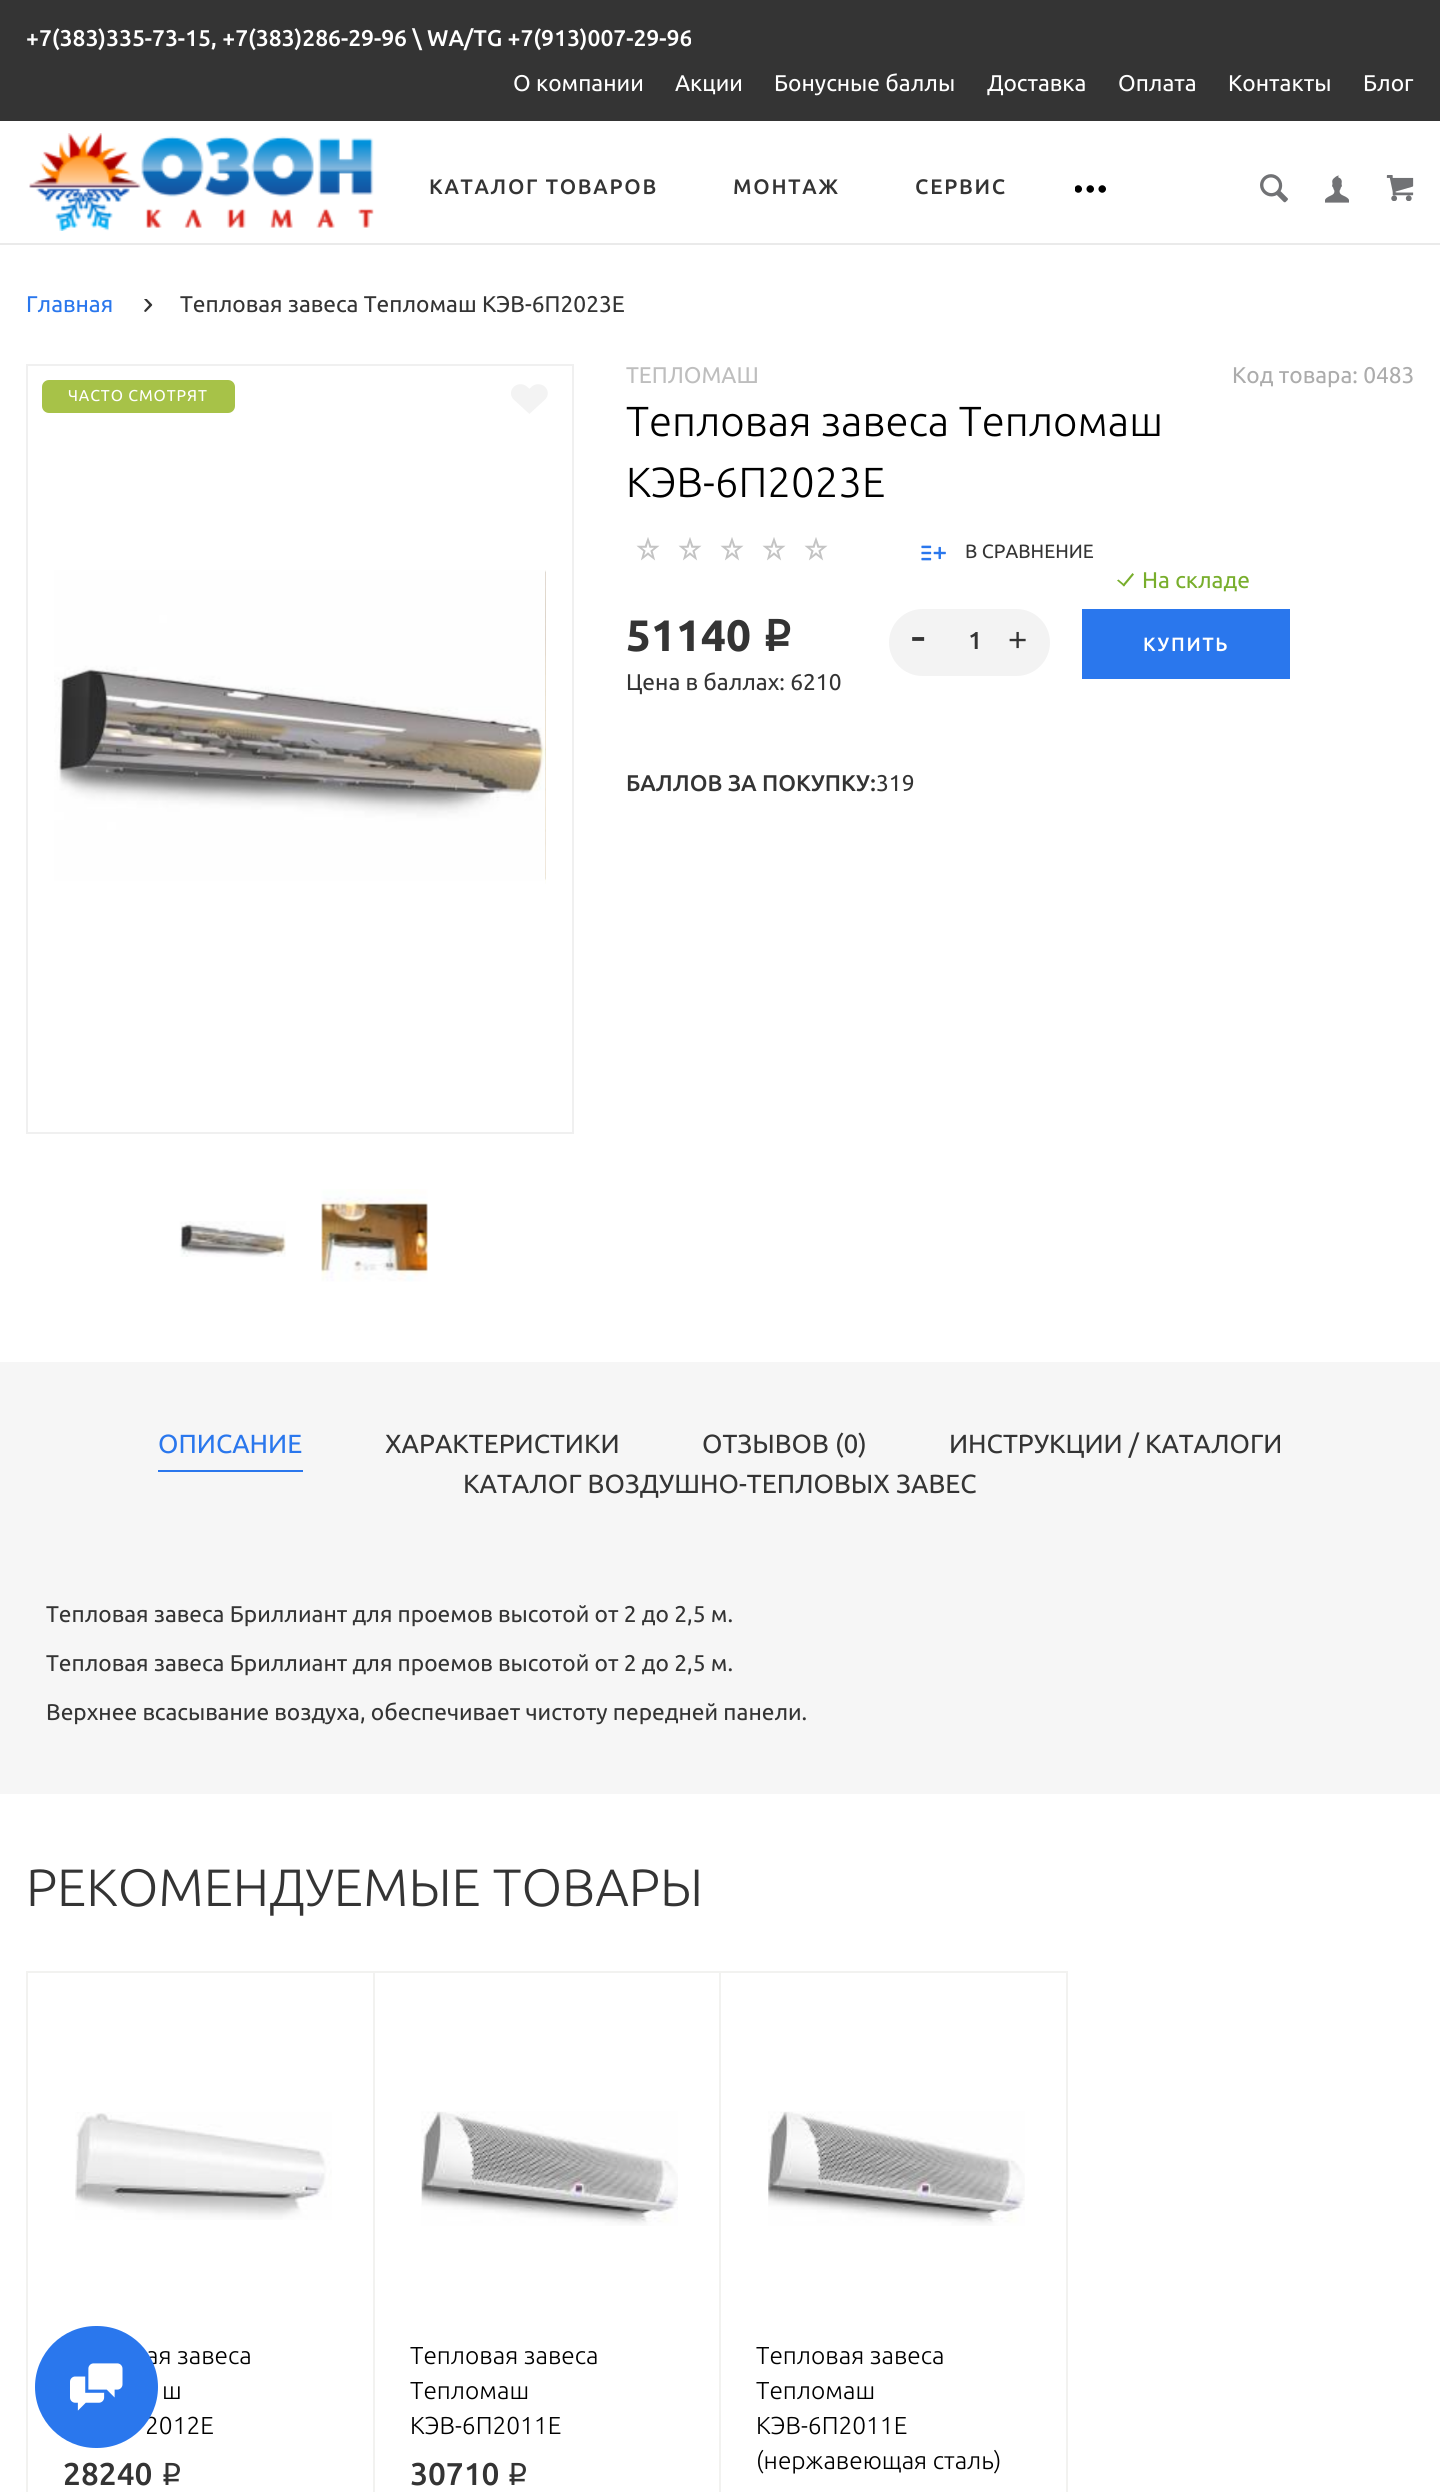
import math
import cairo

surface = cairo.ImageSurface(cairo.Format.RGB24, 1440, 2492)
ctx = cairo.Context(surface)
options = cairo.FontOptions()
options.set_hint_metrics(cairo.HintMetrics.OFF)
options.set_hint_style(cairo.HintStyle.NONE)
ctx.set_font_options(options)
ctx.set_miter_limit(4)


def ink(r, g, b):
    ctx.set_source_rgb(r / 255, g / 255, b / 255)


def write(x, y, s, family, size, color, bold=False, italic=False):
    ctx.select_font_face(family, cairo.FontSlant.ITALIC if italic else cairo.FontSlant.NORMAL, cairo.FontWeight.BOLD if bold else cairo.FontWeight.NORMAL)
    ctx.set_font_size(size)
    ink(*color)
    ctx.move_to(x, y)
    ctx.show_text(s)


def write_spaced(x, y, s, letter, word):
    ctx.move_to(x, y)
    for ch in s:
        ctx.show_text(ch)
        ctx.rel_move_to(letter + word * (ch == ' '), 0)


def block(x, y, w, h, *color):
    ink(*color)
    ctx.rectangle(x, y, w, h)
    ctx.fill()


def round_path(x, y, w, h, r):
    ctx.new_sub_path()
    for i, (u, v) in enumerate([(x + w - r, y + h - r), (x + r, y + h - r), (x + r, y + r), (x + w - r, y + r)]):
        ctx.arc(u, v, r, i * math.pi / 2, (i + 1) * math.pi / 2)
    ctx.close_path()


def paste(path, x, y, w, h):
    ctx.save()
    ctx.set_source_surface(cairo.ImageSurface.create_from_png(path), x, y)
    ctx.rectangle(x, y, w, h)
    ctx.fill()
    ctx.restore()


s1 = dict(family="Ubuntu Medium", size=22.75, color=(255, 255, 255))
s2 = dict(family="Ubuntu", size=22.75, color=(255, 255, 255))
s3 = dict(family="Ubuntu", size=22.75, color=(42, 119, 237))
s4 = dict(family="Ubuntu", size=22.75, color=(52, 52, 52))
s5 = dict(family="Ubuntu", size=22.75, color=(190, 190, 190))
s6 = dict(family="Ubuntu", size=22.75, color=(172, 172, 172))
s7 = dict(family="Ubuntu Light", size=42, color=(0, 0, 0))
s8 = dict(family="Ubuntu", size=19.25, color=(52, 52, 52))
s9 = dict(family="Ubuntu", size=44, color=(52, 52, 52), bold=True)
s10 = dict(family="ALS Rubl", size=44, color=(52, 52, 52), bold=True)
s11 = dict(family="Liberation Sans", size=49, color=(52, 52, 52))
s12 = dict(family="Liberation Sans", size=33, color=(52, 52, 52))
s13 = dict(family="Ubuntu", size=22.75, color=(120, 174, 44))
s14 = dict(family="Ubuntu Medium", size=22.75, color=(52, 52, 52))
s15 = dict(family="Ubuntu", size=26.25, color=(42, 119, 237))
s16 = dict(family="Ubuntu", size=26.25, color=(52, 52, 52))
s17 = dict(family="Ubuntu Light", size=52.5, color=(52, 52, 52))
s18 = dict(family="Ubuntu Light", size=24.5, color=(0, 0, 0))
s19 = dict(family="Ubuntu Medium", size=31.5, color=(52, 52, 52))
s20 = dict(family="ALS Rubl", size=31.5, color=(52, 52, 52))

ink(255, 255, 255)
ctx.paint()
block(0, 243, 1440, 2, 234, 234, 234)
block(0, 0, 1440, 121, 52, 52, 52)
write(26, 46, "+7(383)335-73-15, +7(383)286-29-96 \\ WA/TG +7(913)007-29-96", **s1)
write(513, 91, "О компании", **s2)
write(675, 91, "Акции", **s2)
write(774, 91, "Бонусные баллы", **s2)
write(987, 91, "Доставка", **s2)
write(1118, 91, "Оплата", **s2)
write(1228, 91, "Контакты", **s2)
write(1363, 91, "Блог", **s2)
paste("pic1.png", 29, 133, 345, 98)
ctx.select_font_face("Ubuntu Medium")
ctx.set_font_size(21)
ink(52, 52, 52)
write_spaced(429, 194, "КАТАЛОГ ТОВАРОВ", 1.75, 0)
write_spaced(733, 194, "МОНТАЖ", 1.75, 0)
write_spaced(915, 194, "СЕРВИС", 1.75, 0)
paste("pic2.png", 1075, 185, 31, 8)
paste("pic3.png", 1260, 174, 28, 29)
paste("pic4.png", 1325, 175, 24, 28)
paste("pic5.png", 1386, 175, 28, 26)
write(26, 312, "Главная", **s3)
paste("pic6.png", 144, 299, 9, 13)
write(180, 312, "Тепловая завеса Тепломаш КЭВ-6П2023E", **s4)
ctx.rectangle(27, 365, 546, 768)
ink(240, 240, 240)
ctx.stroke()
ink(167, 194, 72)
round_path(42, 380, 193, 33, 7)
ctx.fill()
ctx.set_font_size(15.75)
ink(255, 255, 255)
write_spaced(68, 401, "ЧАСТО СМОТРЯТ", 0.9, 0)
paste("pic7.png", 511, 384, 37, 30)
paste("pic8.png", 54, 570, 492, 311)
paste("pic9.png", 545, 570, 1, 314)
paste("pic10.png", 179, 1221, 107, 36)
paste("pic11.png", 321, 1189, 107, 93)
write(626, 383, "ТЕПЛОМАШ", **s5)
write(1232, 383, "Код товара: 0483", **s6)
write(626, 436, "Тепловая завеса Тепломаш", **s7)
write(626, 497, "КЭВ-6П2023E", **s7)
paste("pic12.png", 636, 537, 192, 24)
paste("pic13.png", 921, 545, 25, 16)
write(965, 558, "В СРАВНЕНИЕ", **s8)
write(626, 651, "51140", **s9)
write(761, 651, "₽", **s10)
write(626, 690, "Цена в баллах: 6210", **s4)
ink(243, 243, 243)
round_path(889, 609, 161, 67, 33.5)
ctx.fill()
write(910, 652, "-", **s11)
ctx.select_font_face("Ubuntu Medium")
ctx.set_font_size(24.5)
write_spaced(968, 649, "1", 1.75, 0)
write(1008, 651, "+", **s12)
ink(120, 174, 44)
ctx.new_path()
ctx.move_to(1132.5, 573)
ctx.line_to(1134, 574.5)
ctx.line_to(1124, 586.5)
ctx.line_to(1122.5, 585)
ctx.close_path()
ctx.fill()
ctx.new_path()
ctx.move_to(1118.5, 579.5)
ctx.line_to(1125, 585)
ctx.line_to(1124, 586.5)
ctx.line_to(1117, 580.5)
ctx.close_path()
ctx.fill()
write(1142, 588, "На складе", **s13)
block(1082, 609, 208, 70, 42, 119, 237)
ctx.select_font_face("Ubuntu Medium")
ctx.set_font_size(19.25)
ink(255, 255, 255)
write_spaced(1143, 651, "КУПИТЬ", 1.75, 0)
write(626, 791, "БАЛЛОВ ЗА ПОКУПКУ:", **s14)
write(876, 791, "319", **s4)
block(0, 1362, 1440, 432, 246, 246, 246)
write(158, 1453, "ОПИСАНИЕ", **s15)
block(158, 1470, 145, 2, 42, 119, 237)
write(385, 1453, "ХАРАКТЕРИСТИКИ", **s16)
write(702, 1453, "ОТЗЫВОВ (0)", **s16)
write(949, 1453, "ИНСТРУКЦИИ / КАТАЛОГИ", **s16)
write(463, 1493, "КАТАЛОГ ВОЗДУШНО-ТЕПЛОВЫХ ЗАВЕС", **s16)
write(46, 1622, "Тепловая завеса Бриллиант для проемов высотой от 2 до 2,5 м.", **s4)
write(46, 1671, "Тепловая завеса Бриллиант для проемов высотой от 2 до 2,5 м.", **s4)
write(46, 1720, "Верхнее всасывание воздуха, обеспечивает чистоту передней панели.", **s4)
write(26, 1906, "РЕКОМЕНДУЕМЫЕ ТОВАРЫ", **s17)
block(26, 1971, 2, 521, 242, 242, 240)
block(28, 1971, 1040, 2, 242, 242, 240)
block(373, 1971, 2, 521, 242, 242, 240)
paste("pic14.png", 75, 2112, 257, 108)
write(146, 2364, "ая завеса", **s18)
write(162, 2399, "ш", **s18)
write(145, 2434, "2012Е", **s18)
write(63, 2485, "28240", **s19)
write(160, 2485, "₽", **s20)
block(719, 1971, 2, 521, 242, 242, 240)
paste("pic15.png", 421, 2111, 257, 115)
write(410, 2364, "Тепловая завеса", **s18)
write(410, 2399, "Тепломаш", **s18)
write(410, 2434, "КЭВ-6П2011E", **s18)
write(410, 2485, "30710", **s19)
write(506, 2485, "₽", **s20)
block(1066, 1971, 2, 521, 242, 242, 240)
paste("pic16.png", 768, 2111, 257, 115)
write(756, 2364, "Тепловая завеса", **s18)
write(756, 2399, "Тепломаш", **s18)
write(756, 2434, "КЭВ-6П2011E", **s18)
write(756, 2469, "(нержавеющая сталь)", **s18)
ink(42, 119, 237)
round_path(35, 2326, 123, 122, 61)
ctx.fill()
paste("pic17.png", 70, 2363, 53, 48)
surface.write_to_png("screenshot.png")
